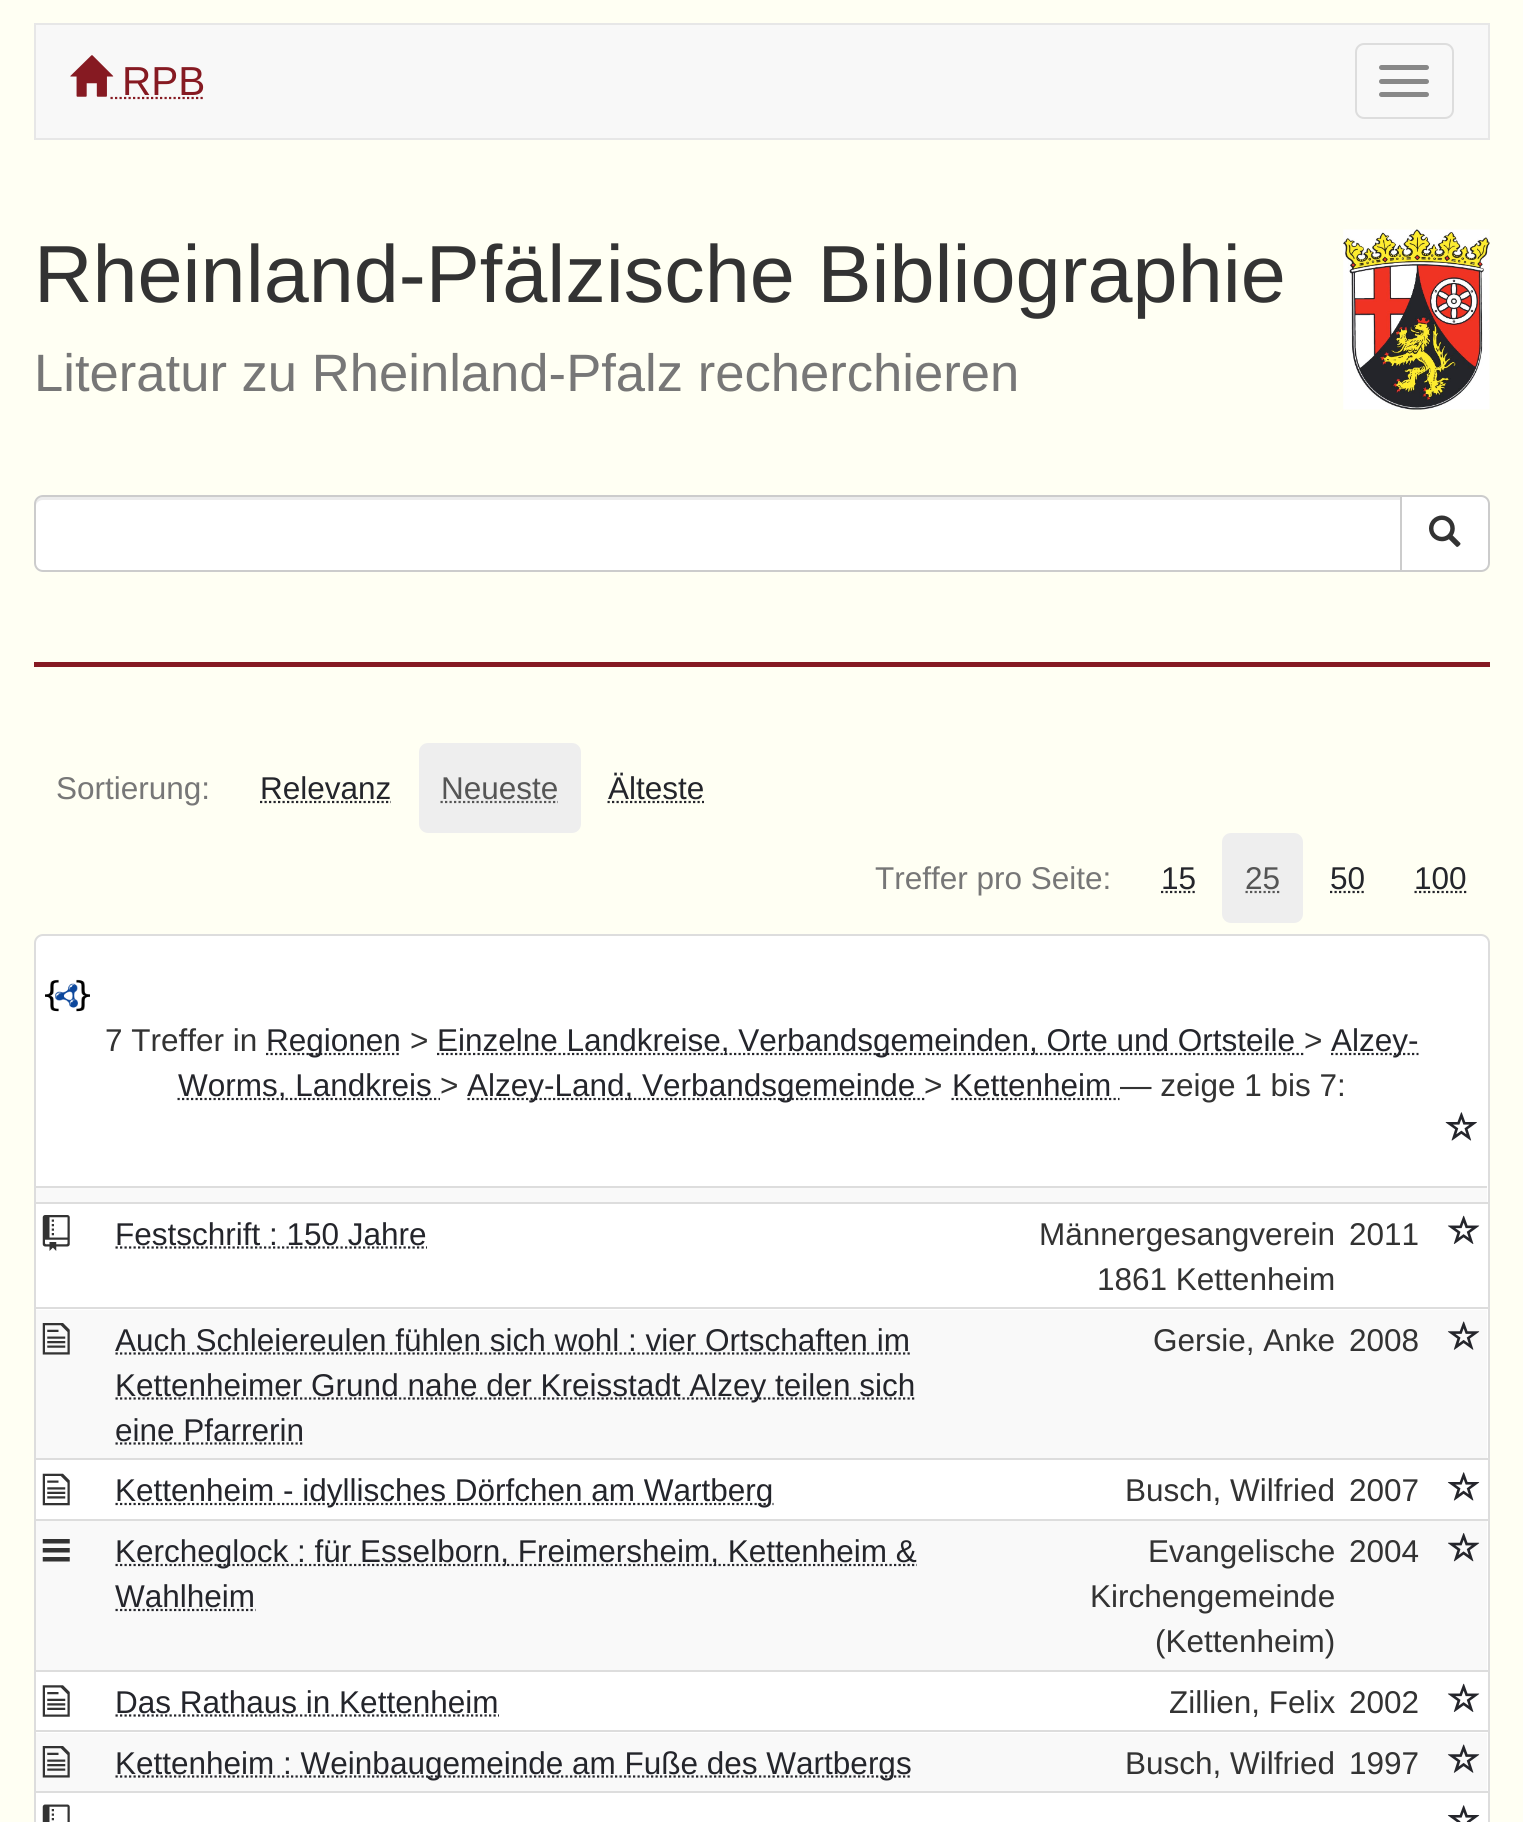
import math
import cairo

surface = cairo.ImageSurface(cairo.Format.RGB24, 1523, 1822)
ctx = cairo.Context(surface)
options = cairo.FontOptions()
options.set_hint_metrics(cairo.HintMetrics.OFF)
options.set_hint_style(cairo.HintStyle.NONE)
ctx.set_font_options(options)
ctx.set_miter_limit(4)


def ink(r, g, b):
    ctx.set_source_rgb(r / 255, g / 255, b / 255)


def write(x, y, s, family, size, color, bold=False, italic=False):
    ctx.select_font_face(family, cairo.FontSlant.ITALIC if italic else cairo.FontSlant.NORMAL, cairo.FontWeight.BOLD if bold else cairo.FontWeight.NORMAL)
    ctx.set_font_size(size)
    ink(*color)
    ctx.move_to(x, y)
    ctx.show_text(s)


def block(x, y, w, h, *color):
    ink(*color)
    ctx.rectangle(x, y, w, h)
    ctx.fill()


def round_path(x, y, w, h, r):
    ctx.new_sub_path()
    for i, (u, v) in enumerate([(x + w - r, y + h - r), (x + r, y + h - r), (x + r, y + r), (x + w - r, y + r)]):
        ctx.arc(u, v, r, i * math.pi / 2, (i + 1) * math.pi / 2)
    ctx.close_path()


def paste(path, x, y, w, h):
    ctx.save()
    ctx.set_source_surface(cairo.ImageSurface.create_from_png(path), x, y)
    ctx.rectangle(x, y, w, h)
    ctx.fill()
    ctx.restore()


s1 = dict(family="Liberation Sans", size=40.5, color=(134, 26, 34))
s2 = dict(family="Liberation Sans", size=81, color=(51, 51, 51))
s3 = dict(family="Liberation Sans", size=52.6, color=(119, 119, 119))
s4 = dict(family="Liberation Sans", size=31.5, color=(119, 119, 119))
s5 = dict(family="Liberation Sans", size=31.5, color=(36, 37, 43))
s6 = dict(family="Liberation Sans", size=31.5, color=(85, 85, 85))
s7 = dict(family="Liberation Sans", size=31.5, color=(51, 51, 51))

ink(255, 255, 243)
ctx.paint()
ink(248, 248, 248)
ctx.rectangle(35, 24, 1454, 115)
ctx.fill_preserve()
ink(231, 231, 231)
ctx.stroke()
ctx.new_path()
ctx.move_to(110.5, 98)
ctx.line_to(205, 98)
ink(134, 26, 34)
ctx.set_line_width(2.2)
ctx.set_dash([2.25, 2.25])
ctx.stroke()
paste("pic1.png", 70, 55, 44, 42)
write(122, 95, "RPB", **s1)
round_path(1356, 44, 97, 74, 8)
ink(221, 221, 221)
ctx.set_line_width(2)
ctx.set_dash([])
ctx.stroke()
ink(136, 136, 136)
round_path(1379, 65, 50, 5, 2.5)
ctx.fill()
round_path(1379, 79, 50, 5, 2.5)
ctx.fill()
round_path(1379, 92, 50, 5, 2.5)
ctx.fill()
write(34, 302, "Rheinland-Pfälzische Bibliographie", **s2)
write(34, 391, "Literatur zu Rheinland-Pfalz recherchieren", **s3)
paste("pic2.png", 1343, 229, 147, 181)
ink(255, 255, 255)
ctx.new_path()
ctx.move_to(43, 495)
ctx.line_to(1402, 495)
ctx.line_to(1402, 572)
ctx.line_to(43, 572)
ctx.curve_to(38, 572, 34, 568, 34, 563)
ctx.line_to(34, 504)
ctx.curve_to(34, 499, 38, 495, 43, 495)
ctx.close_path()
ctx.fill()
ink(236, 236, 236)
ctx.new_path()
ctx.move_to(43, 500)
ctx.line_to(1400, 500)
ctx.line_to(1400, 497)
ctx.line_to(43, 497)
ctx.curve_to(39, 497, 36, 500, 36, 504)
ctx.line_to(36, 506)
ctx.curve_to(36, 503, 39, 500, 43, 500)
ctx.close_path()
ctx.fill()
ctx.new_path()
ctx.move_to(43, 496)
ctx.line_to(1401, 496)
ctx.line_to(1401, 571)
ctx.line_to(43, 571)
ctx.curve_to(38.5, 571, 35, 567.5, 35, 563)
ctx.line_to(35, 504)
ctx.curve_to(35, 499.5, 38.5, 496, 43, 496)
ctx.close_path()
ink(204, 204, 204)
ctx.stroke()
ink(255, 255, 255)
ctx.new_path()
ctx.move_to(1401, 496)
ctx.line_to(1481, 496)
ctx.curve_to(1485.5, 496, 1489, 499.5, 1489, 504)
ctx.line_to(1489, 563)
ctx.curve_to(1489, 567.5, 1485.5, 571, 1481, 571)
ctx.line_to(1401, 571)
ctx.close_path()
ctx.fill_preserve()
ink(204, 204, 204)
ctx.stroke()
paste("pic3.png", 1429, 515, 32, 32)
block(34, 662, 1456, 5, 134, 26, 34)
write(56, 799, "Sortierung:", **s4)
write(260, 799, "Relevanz", **s5)
ctx.new_path()
ctx.move_to(260, 802)
ctx.line_to(391, 802)
ctx.set_line_width(2.2)
ctx.set_dash([2.25, 2.25])
ctx.stroke()
ink(238, 238, 238)
round_path(419, 743, 162, 90, 9)
ctx.fill()
write(441, 799, "Neueste", **s6)
ctx.new_path()
ctx.move_to(440.5, 802)
ctx.line_to(558, 802)
ctx.stroke()
write(608, 799, "Älteste", **s5)
ctx.new_path()
ctx.move_to(607.5, 802)
ctx.line_to(704, 802)
ctx.stroke()
write(875, 889, "Treffer pro Seite:", **s4)
write(1161, 889, "15", **s5)
ctx.new_path()
ctx.move_to(1161, 892)
ctx.line_to(1196, 892)
ctx.stroke()
ink(238, 238, 238)
round_path(1222, 833, 81, 90, 9)
ctx.fill()
write(1245, 889, "25", **s6)
ctx.new_path()
ctx.move_to(1245.5, 892)
ctx.line_to(1280.5, 892)
ctx.stroke()
write(1330, 889, "50", **s5)
ctx.new_path()
ctx.move_to(1330, 892)
ctx.line_to(1365, 892)
ctx.stroke()
write(1414, 889, "100", **s5)
ctx.new_path()
ctx.move_to(1414.5, 892)
ctx.line_to(1467, 892)
ctx.stroke()
ink(255, 255, 255)
round_path(35, 935, 1454, 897, 8)
ctx.fill_preserve()
ink(221, 221, 221)
ctx.set_line_width(2)
ctx.set_dash([])
ctx.stroke()
paste("pic4.png", 45, 979, 45, 33)
write(105, 1051, "7 Treffer in", **s7)
ctx.new_path()
ctx.move_to(266, 1054)
ctx.line_to(401, 1054)
ink(36, 37, 43)
ctx.set_line_width(2.2)
ctx.set_dash([2.25, 2.25])
ctx.stroke()
write(266, 1051, "Regionen", **s5)
write(410, 1051, ">", **s7)
ctx.new_path()
ctx.move_to(437, 1054)
ctx.line_to(1303.5, 1054)
ink(36, 37, 43)
ctx.stroke()
write(437, 1051, "Einzelne Landkreise, Verbandsgemeinden, Orte und Ortsteile", **s5)
write(1304, 1051, ">", **s7)
ctx.new_path()
ctx.move_to(1331, 1054)
ctx.line_to(1418.5, 1054)
ink(36, 37, 43)
ctx.stroke()
write(1331, 1051, "Alzey-", **s5)
ctx.new_path()
ctx.move_to(177.5, 1099)
ctx.line_to(440, 1099)
ctx.stroke()
write(178, 1096, "Worms, Landkreis", **s5)
write(440, 1096, ">", **s7)
ctx.new_path()
ctx.move_to(467.5, 1099)
ctx.line_to(924.5, 1099)
ink(36, 37, 43)
ctx.stroke()
write(467, 1096, "Alzey-Land, Verbandsgemeinde", **s5)
write(924, 1096, ">", **s7)
write(952, 1096, "Kettenheim", **s5)
ctx.new_path()
ctx.move_to(951.5, 1099)
ctx.line_to(1119.5, 1099)
ctx.stroke()
write(1120, 1096, "— zeige 1 bis 7:", **s7)
paste("pic5.png", 1445, 1112, 32, 29)
block(36, 1186, 1451, 2, 221, 221, 221)
block(36, 1188, 1451, 14, 249, 249, 249)
block(36, 1202, 1454, 2, 221, 221, 221)
paste("pic6.png", 1447, 1215, 33, 29)
paste("pic7.png", 42, 1215, 28, 36)
write(115, 1245, "Festschrift : 150 Jahre", **s5)
ctx.new_path()
ctx.move_to(115.5, 1247.5)
ctx.line_to(427, 1247.5)
ctx.stroke()
write(1039, 1245, "Männergesangverein", **s7)
write(1097, 1290, "1861 Kettenheim", **s7)
write(1349, 1245, "2011", **s7)
block(36, 1310, 1451, 148, 249, 249, 249)
block(36, 1307, 1454, 2, 221, 221, 221)
paste("pic8.png", 1447, 1321, 33, 29)
paste("pic9.png", 42, 1323, 28, 32)
write(115, 1351, "Auch Schleiereulen fühlen sich wohl : vier Ortschaften im", **s5)
ctx.new_path()
ctx.move_to(115.5, 1353.5)
ctx.line_to(910, 1353.5)
ctx.stroke()
ctx.new_path()
ctx.move_to(115.5, 1398.5)
ctx.line_to(915.5, 1398.5)
ctx.stroke()
write(115, 1396, "Kettenheimer Grund nahe der Kreisstadt Alzey teilen sich", **s5)
write(115, 1441, "eine Pfarrerin", **s5)
ctx.new_path()
ctx.move_to(115.5, 1443.5)
ctx.line_to(304.5, 1443.5)
ctx.stroke()
write(1153, 1351, "Gersie, Anke", **s7)
write(1349, 1351, "2008", **s7)
block(36, 1458, 1454, 2, 221, 221, 221)
paste("pic10.png", 1447, 1472, 33, 29)
paste("pic11.png", 42, 1473, 28, 33)
ctx.new_path()
ctx.move_to(115.5, 1504)
ctx.line_to(773.5, 1504)
ink(36, 37, 43)
ctx.stroke()
write(115, 1501, "Kettenheim - idyllisches Dörfchen am Wartberg", **s5)
write(1125, 1501, "Busch, Wilfried", **s7)
write(1349, 1501, "2007", **s7)
block(36, 1521, 1451, 149, 249, 249, 249)
block(36, 1519, 1454, 2, 221, 221, 221)
paste("pic12.png", 1448, 1533, 32, 29)
paste("pic13.png", 42, 1539, 28, 23)
ctx.new_path()
ctx.move_to(115.5, 1565)
ctx.line_to(917, 1565)
ink(36, 37, 43)
ctx.stroke()
write(115, 1562, "Kercheglock : für Esselborn, Freimersheim, Kettenheim &", **s5)
write(115, 1607, "Wahlheim", **s5)
ctx.new_path()
ctx.move_to(115.5, 1610)
ctx.line_to(255.5, 1610)
ctx.stroke()
write(1148, 1562, "Evangelische", **s7)
write(1090, 1607, "Kirchengemeinde", **s7)
write(1155, 1652, "(Kettenheim)", **s7)
write(1349, 1562, "2004", **s7)
block(36, 1670, 1454, 2, 221, 221, 221)
paste("pic6.png", 1447, 1683, 33, 29)
paste("pic14.png", 42, 1685, 28, 32)
write(115, 1713, "Das Rathaus in Kettenheim", **s5)
ctx.new_path()
ctx.move_to(115.5, 1715.5)
ctx.line_to(499, 1715.5)
ctx.stroke()
write(1169, 1713, "Zillien, Felix", **s7)
write(1349, 1713, "2002", **s7)
block(36, 1733, 1451, 58, 249, 249, 249)
block(36, 1730, 1454, 2, 221, 221, 221)
paste("pic8.png", 1447, 1744, 33, 29)
paste("pic9.png", 42, 1746, 28, 32)
ctx.new_path()
ctx.move_to(115.5, 1776.5)
ctx.line_to(912, 1776.5)
ink(36, 37, 43)
ctx.stroke()
write(115, 1774, "Kettenheim : Weinbaugemeinde am Fuße des Wartbergs", **s5)
write(1125, 1774, "Busch, Wilfried", **s7)
write(1349, 1774, "1997", **s7)
block(36, 1791, 1454, 2, 221, 221, 221)
paste("pic15.png", 1447, 1805, 33, 17)
paste("pic16.png", 42, 1804, 28, 18)
surface.write_to_png("screenshot.png")
